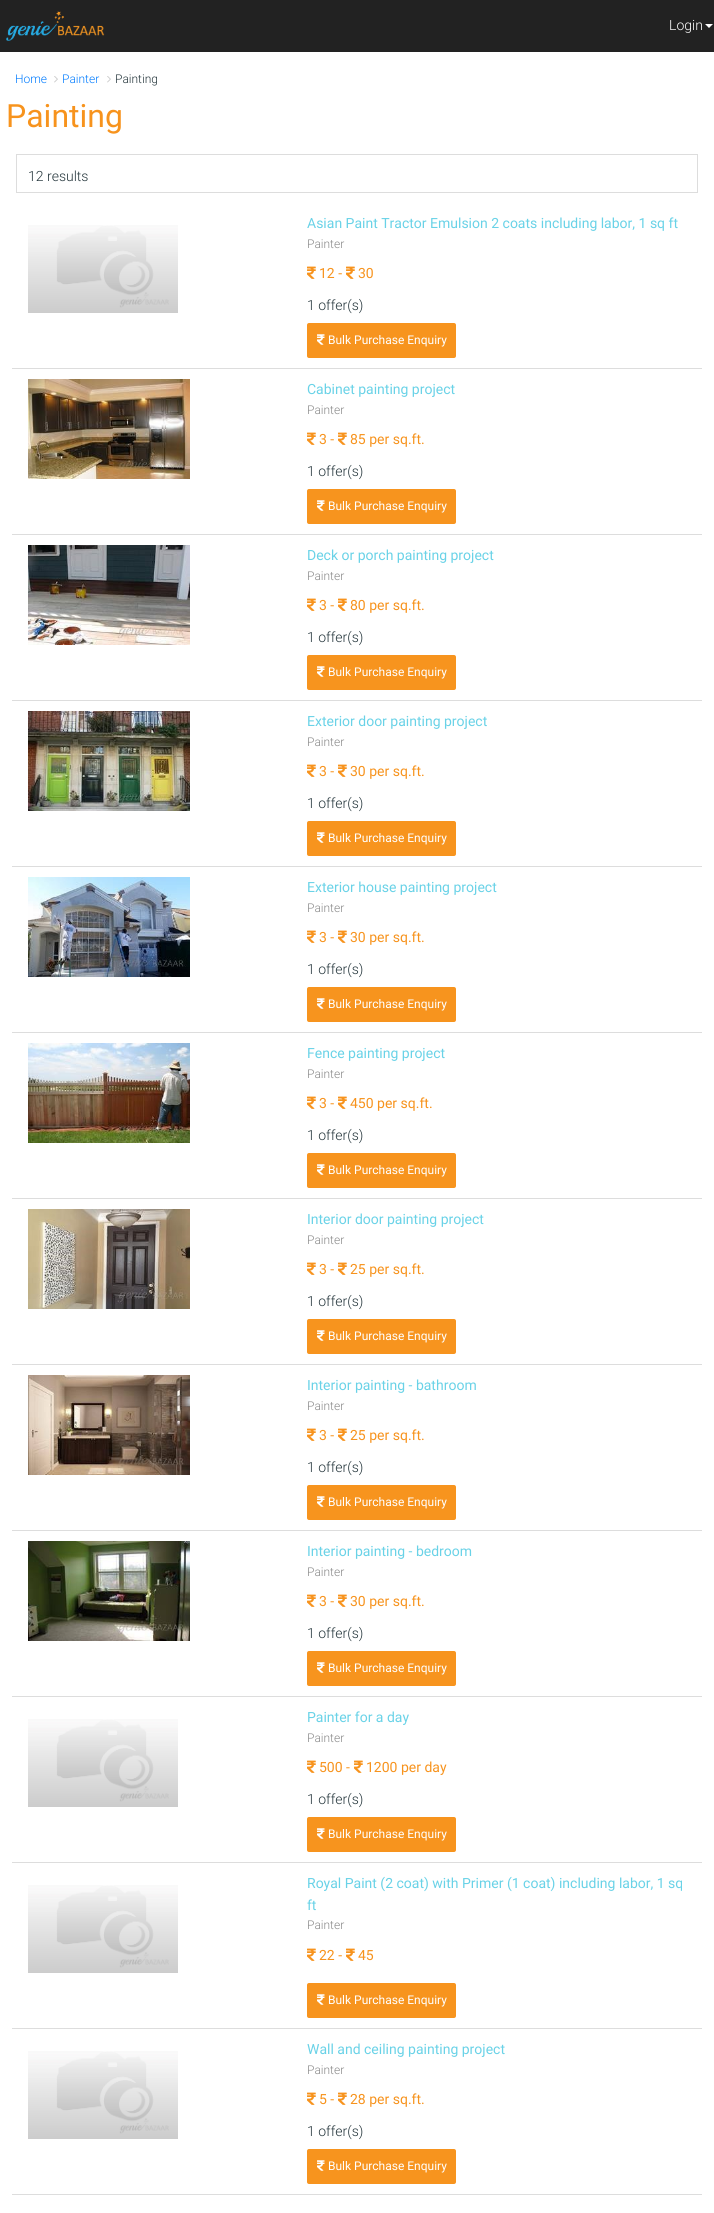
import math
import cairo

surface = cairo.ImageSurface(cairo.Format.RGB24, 714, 2213)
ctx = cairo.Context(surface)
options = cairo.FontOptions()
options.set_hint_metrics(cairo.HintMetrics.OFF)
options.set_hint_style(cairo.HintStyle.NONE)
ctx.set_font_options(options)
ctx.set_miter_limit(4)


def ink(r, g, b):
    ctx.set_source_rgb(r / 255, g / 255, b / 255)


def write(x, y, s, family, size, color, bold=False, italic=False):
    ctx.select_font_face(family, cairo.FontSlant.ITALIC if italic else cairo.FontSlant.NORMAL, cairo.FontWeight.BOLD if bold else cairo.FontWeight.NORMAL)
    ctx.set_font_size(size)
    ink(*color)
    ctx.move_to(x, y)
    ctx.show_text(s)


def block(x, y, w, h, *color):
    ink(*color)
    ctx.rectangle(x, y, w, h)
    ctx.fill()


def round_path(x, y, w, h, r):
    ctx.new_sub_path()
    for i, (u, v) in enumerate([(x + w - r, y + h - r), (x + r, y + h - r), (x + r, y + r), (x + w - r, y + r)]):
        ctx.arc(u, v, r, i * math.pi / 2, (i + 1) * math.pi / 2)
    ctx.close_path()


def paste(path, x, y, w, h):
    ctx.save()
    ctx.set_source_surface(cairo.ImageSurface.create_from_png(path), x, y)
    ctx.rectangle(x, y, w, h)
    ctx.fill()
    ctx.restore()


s1 = dict(family="Roboto Light", size=14, color=(255, 255, 255))
s2 = dict(family="Roboto Light", size=12, color=(0, 123, 255))
s3 = dict(family="Roboto Light", size=12, color=(35, 52, 58))
s4 = dict(family="Roboto", size=32, color=(247, 147, 29))
s5 = dict(family="Roboto Light", size=14, color=(35, 52, 58))
s6 = dict(family="Roboto", size=14, color=(105, 210, 231))
s7 = dict(family="Roboto Light", size=12, color=(136, 136, 136))
s8 = dict(family="Roboto", size=14, color=(247, 147, 29))
s9 = dict(family="Roboto", size=12, color=(255, 255, 255))

ink(255, 255, 255)
ctx.paint()
block(0, 0, 714, 52, 34, 34, 34)
paste("pic1.png", 6, 11, 99, 30)
write(669, 30, "Login", **s1)
ctx.new_path()
ctx.move_to(705, 24)
ctx.line_to(713, 24)
ctx.line_to(709, 28)
ctx.close_path()
ctx.fill()
write(15, 83, "Home", **s2)
paste("pic2.png", 54, 76, 4, 7)
write(62, 83, "Painter", **s2)
paste("pic2.png", 107, 76, 4, 7)
write(115, 83, "Painting", **s3)
write(6, 127, "Painting", **s4)
ctx.rectangle(16.5, 154.5, 681, 38)
ink(221, 221, 221)
ctx.set_line_width(1)
ctx.stroke()
write(28, 181, "12 results", **s5)
block(12, 368, 690, 1, 221, 221, 221)
paste("pic3.png", 28, 225, 150, 88)
write(307, 228, "Asian Paint Tractor Emulsion 2 coats including labor, 1 sq ft", **s6)
write(307, 248, "Painter", **s7)
paste("pic4.png", 307, 266, 9, 13)
write(319, 278, "12 -", **s8)
paste("pic4.png", 346, 266, 9, 13)
write(358, 278, "30", **s8)
ink(247, 148, 30)
round_path(307, 323, 149, 35, 2)
ctx.fill()
paste("pic5.png", 317, 334, 8, 11)
write(328, 344, "Bulk Purchase Enquiry", **s9)
write(307, 310, "1 offer(s)", **s5)
block(12, 534, 690, 1, 221, 221, 221)
paste("pic6.png", 28, 379, 162, 100)
write(307, 394, "Cabinet painting project", **s6)
write(307, 414, "Painter", **s7)
paste("pic4.png", 307, 432, 9, 13)
write(319, 444, "3 -", **s8)
paste("pic4.png", 338, 432, 9, 13)
write(350, 444, "85 per sq.ft.", **s8)
ink(247, 148, 30)
round_path(307, 489, 149, 35, 2)
ctx.fill()
paste("pic5.png", 317, 500, 8, 11)
write(328, 510, "Bulk Purchase Enquiry", **s9)
write(307, 476, "1 offer(s)", **s5)
block(12, 700, 690, 1, 221, 221, 221)
paste("pic7.png", 28, 545, 162, 100)
write(307, 560, "Deck or porch painting project", **s6)
write(307, 580, "Painter", **s7)
paste("pic4.png", 307, 598, 9, 13)
write(319, 610, "3 -", **s8)
paste("pic4.png", 338, 598, 9, 13)
write(350, 610, "80 per sq.ft.", **s8)
ink(247, 148, 30)
round_path(307, 655, 149, 35, 2)
ctx.fill()
paste("pic5.png", 317, 666, 8, 11)
write(328, 676, "Bulk Purchase Enquiry", **s9)
write(307, 642, "1 offer(s)", **s5)
block(12, 866, 690, 1, 221, 221, 221)
paste("pic8.png", 28, 711, 162, 100)
write(307, 726, "Exterior door painting project", **s6)
write(307, 746, "Painter", **s7)
paste("pic4.png", 307, 764, 9, 13)
write(319, 776, "3 -", **s8)
paste("pic4.png", 338, 764, 9, 13)
write(350, 776, "30 per sq.ft.", **s8)
ink(247, 148, 30)
round_path(307, 821, 149, 35, 2)
ctx.fill()
paste("pic5.png", 317, 832, 8, 11)
write(328, 842, "Bulk Purchase Enquiry", **s9)
write(307, 808, "1 offer(s)", **s5)
block(12, 1032, 690, 1, 221, 221, 221)
paste("pic9.png", 28, 877, 162, 100)
write(307, 892, "Exterior house painting project", **s6)
write(307, 912, "Painter", **s7)
paste("pic4.png", 307, 930, 9, 13)
write(319, 942, "3 -", **s8)
paste("pic4.png", 338, 930, 9, 13)
write(350, 942, "30 per sq.ft.", **s8)
ink(247, 148, 30)
round_path(307, 987, 149, 35, 2)
ctx.fill()
paste("pic5.png", 317, 998, 8, 11)
write(328, 1008, "Bulk Purchase Enquiry", **s9)
write(307, 974, "1 offer(s)", **s5)
block(12, 1198, 690, 1, 221, 221, 221)
paste("pic10.png", 28, 1043, 162, 100)
write(307, 1058, "Fence painting project", **s6)
write(307, 1078, "Painter", **s7)
paste("pic4.png", 307, 1096, 9, 13)
write(319, 1108, "3 -", **s8)
paste("pic4.png", 338, 1096, 9, 13)
write(350, 1108, "450 per sq.ft.", **s8)
ink(247, 148, 30)
round_path(307, 1153, 149, 35, 2)
ctx.fill()
paste("pic5.png", 317, 1164, 8, 11)
write(328, 1174, "Bulk Purchase Enquiry", **s9)
write(307, 1140, "1 offer(s)", **s5)
block(12, 1364, 690, 1, 221, 221, 221)
paste("pic11.png", 28, 1209, 162, 100)
write(307, 1224, "Interior door painting project", **s6)
write(307, 1244, "Painter", **s7)
paste("pic4.png", 307, 1262, 9, 13)
write(319, 1274, "3 -", **s8)
paste("pic4.png", 338, 1262, 9, 13)
write(350, 1274, "25 per sq.ft.", **s8)
ink(247, 148, 30)
round_path(307, 1319, 149, 35, 2)
ctx.fill()
paste("pic5.png", 317, 1330, 8, 11)
write(328, 1340, "Bulk Purchase Enquiry", **s9)
write(307, 1306, "1 offer(s)", **s5)
block(12, 1530, 690, 1, 221, 221, 221)
paste("pic12.png", 28, 1375, 162, 100)
write(307, 1390, "Interior painting - bathroom", **s6)
write(307, 1410, "Painter", **s7)
paste("pic4.png", 307, 1428, 9, 13)
write(319, 1440, "3 -", **s8)
paste("pic4.png", 338, 1428, 9, 13)
write(350, 1440, "25 per sq.ft.", **s8)
ink(247, 148, 30)
round_path(307, 1485, 149, 35, 2)
ctx.fill()
paste("pic5.png", 317, 1496, 8, 11)
write(328, 1506, "Bulk Purchase Enquiry", **s9)
write(307, 1472, "1 offer(s)", **s5)
block(12, 1696, 690, 1, 221, 221, 221)
paste("pic13.png", 28, 1541, 162, 100)
write(307, 1556, "Interior painting - bedroom", **s6)
write(307, 1576, "Painter", **s7)
paste("pic4.png", 307, 1594, 9, 13)
write(319, 1606, "3 -", **s8)
paste("pic4.png", 338, 1594, 9, 13)
write(350, 1606, "30 per sq.ft.", **s8)
ink(247, 148, 30)
round_path(307, 1651, 149, 35, 2)
ctx.fill()
paste("pic5.png", 317, 1662, 8, 11)
write(328, 1672, "Bulk Purchase Enquiry", **s9)
write(307, 1638, "1 offer(s)", **s5)
block(12, 1862, 690, 1, 221, 221, 221)
paste("pic3.png", 28, 1719, 150, 88)
write(307, 1722, "Painter for a day", **s6)
write(307, 1742, "Painter", **s7)
paste("pic4.png", 307, 1760, 9, 13)
write(319, 1772, "500 -", **s8)
paste("pic4.png", 354, 1760, 9, 13)
write(366, 1772, "1200 per day", **s8)
ink(247, 148, 30)
round_path(307, 1817, 149, 35, 2)
ctx.fill()
paste("pic5.png", 317, 1828, 8, 11)
write(328, 1838, "Bulk Purchase Enquiry", **s9)
write(307, 1804, "1 offer(s)", **s5)
block(12, 2028, 690, 1, 221, 221, 221)
paste("pic3.png", 28, 1885, 150, 88)
write(307, 1888, "Royal Paint (2 coat) with Primer (1 coat) including labor, 1 sq", **s6)
write(307, 1910, "ft", **s6)
write(307, 1929, "Painter", **s7)
paste("pic4.png", 307, 1948, 9, 13)
write(319, 1960, "22 -", **s8)
paste("pic4.png", 346, 1948, 9, 13)
write(358, 1960, "45", **s8)
ink(247, 148, 30)
round_path(307, 1983, 149, 35, 2)
ctx.fill()
paste("pic5.png", 317, 1994, 8, 11)
write(328, 2004, "Bulk Purchase Enquiry", **s9)
block(12, 2194, 690, 1, 221, 221, 221)
paste("pic3.png", 28, 2051, 150, 88)
write(307, 2054, "Wall and ceiling painting project", **s6)
write(307, 2074, "Painter", **s7)
paste("pic4.png", 307, 2092, 9, 13)
write(319, 2104, "5 -", **s8)
paste("pic4.png", 338, 2092, 9, 13)
write(350, 2104, "28 per sq.ft.", **s8)
ink(247, 148, 30)
round_path(307, 2149, 149, 35, 2)
ctx.fill()
paste("pic5.png", 317, 2160, 8, 11)
write(328, 2170, "Bulk Purchase Enquiry", **s9)
write(307, 2136, "1 offer(s)", **s5)
surface.write_to_png("screenshot.png")
